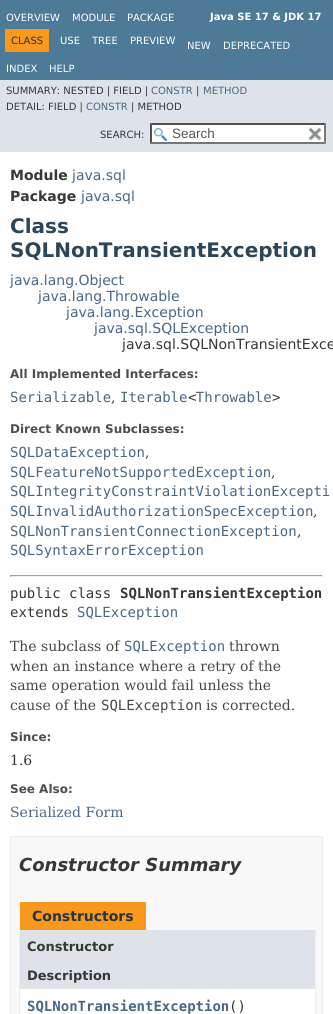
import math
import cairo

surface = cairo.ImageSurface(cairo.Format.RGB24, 333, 1014)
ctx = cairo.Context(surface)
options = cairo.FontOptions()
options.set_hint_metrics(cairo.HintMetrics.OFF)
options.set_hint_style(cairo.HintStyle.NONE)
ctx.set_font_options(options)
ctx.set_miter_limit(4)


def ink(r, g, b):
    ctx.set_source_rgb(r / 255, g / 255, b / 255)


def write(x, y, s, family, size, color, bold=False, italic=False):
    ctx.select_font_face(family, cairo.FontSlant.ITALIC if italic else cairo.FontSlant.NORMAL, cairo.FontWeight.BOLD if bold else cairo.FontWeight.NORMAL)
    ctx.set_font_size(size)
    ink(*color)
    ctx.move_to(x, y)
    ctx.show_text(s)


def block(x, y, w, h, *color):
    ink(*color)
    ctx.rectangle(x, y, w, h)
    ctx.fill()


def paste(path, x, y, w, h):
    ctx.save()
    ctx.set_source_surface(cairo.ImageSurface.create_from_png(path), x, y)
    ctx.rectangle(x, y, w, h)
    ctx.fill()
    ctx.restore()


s1 = dict(family="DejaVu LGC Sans", size=10, color=(255, 255, 255), bold=True)
s2 = dict(family="DejaVu LGC Sans", size=10, color=(255, 255, 255))
s3 = dict(family="DejaVu LGC Sans", size=10, color=(37, 52, 65))
s4 = dict(family="DejaVu LGC Sans", size=10, color=(53, 56, 51))
s5 = dict(family="DejaVu LGC Sans", size=10, color=(74, 103, 130))
s6 = dict(family="Liberation Sans", size=13.5, color=(84, 84, 84))
s7 = dict(family="DejaVu LGC Sans", size=14, color=(53, 56, 51), bold=True)
s8 = dict(family="DejaVu LGC Sans", size=14, color=(74, 103, 130))
s9 = dict(family="DejaVu LGC Sans", size=20, color=(44, 69, 87), bold=True)
s10 = dict(family="DejaVu LGC Sans", size=14, color=(53, 56, 51))
s11 = dict(family="DejaVu LGC Sans", size=12, color=(78, 78, 78), bold=True)
s12 = dict(family="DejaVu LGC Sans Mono", size=14, color=(74, 103, 130))
s13 = dict(family="DejaVu LGC Sans Mono", size=14, color=(53, 56, 51))
s14 = dict(family="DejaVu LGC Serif", size=14, color=(53, 56, 51))
s15 = dict(family="DejaVu LGC Sans Mono", size=14, color=(53, 56, 51), bold=True)
s16 = dict(family="DejaVu LGC Serif", size=14, color=(71, 71, 71))
s17 = dict(family="DejaVu LGC Sans Mono", size=14, color=(71, 71, 71))
s18 = dict(family="DejaVu LGC Serif", size=14, color=(74, 103, 130))
s19 = dict(family="DejaVu LGC Sans", size=18, color=(53, 56, 51), bold=True, italic=True)
s20 = dict(family="DejaVu LGC Sans", size=14, color=(37, 52, 65), bold=True)
s21 = dict(family="DejaVu LGC Sans", size=13, color=(53, 56, 51), bold=True)
s22 = dict(family="DejaVu LGC Sans Mono", size=14, color=(74, 103, 130), bold=True)

ink(255, 255, 255)
ctx.paint()
block(0, 0, 333, 80, 77, 122, 151)
write(210, 20, "Java SE 17 & JDK 17", **s1)
write(6, 21, "OVERVIEW", **s2)
write(72, 21, "MODULE", **s2)
write(127, 21, "PACKAGE", **s2)
block(5, 29, 44, 23, 248, 152, 29)
write(11, 44, "CLASS", **s3)
write(60, 44, "USE", **s2)
write(92, 44, "TREE", **s2)
write(130, 44, "PREVIEW", **s2)
write(187, 49, "NEW", **s2)
write(223, 49, "DEPRECATED", **s2)
write(6, 72, "INDEX", **s2)
write(49, 72, "HELP", **s2)
block(0, 80, 333, 72, 222, 227, 233)
write(6, 94, "SUMMARY: NESTED | FIELD |", **s4)
write(151, 94, "CONSTR", **s5)
write(196, 94, "|", **s4)
write(203, 94, "METHOD", **s5)
write(6, 110, "DETAIL: FIELD |", **s4)
write(86, 110, "CONSTR", **s5)
write(131, 110, "| METHOD", **s4)
write(100, 138, "SEARCH:", **s4)
block(150, 123, 176, 21, 255, 255, 255)
paste("pic1.png", 154, 128, 13, 13)
ink(79, 79, 79)
ctx.new_path()
ctx.move_to(150, 123)
ctx.line_to(326, 123)
ctx.line_to(324, 125)
ctx.line_to(152, 125)
ctx.close_path()
ctx.fill()
ink(118, 118, 118)
ctx.new_path()
ctx.move_to(326, 123)
ctx.line_to(326, 144)
ctx.line_to(324, 142)
ctx.line_to(324, 125)
ctx.close_path()
ctx.fill()
ctx.new_path()
ctx.move_to(326, 144)
ctx.line_to(150, 144)
ctx.line_to(152, 142)
ctx.line_to(324, 142)
ctx.close_path()
ctx.fill()
ink(79, 79, 79)
ctx.new_path()
ctx.move_to(150, 144)
ctx.line_to(150, 123)
ctx.line_to(152, 125)
ctx.line_to(152, 142)
ctx.close_path()
ctx.fill()
write(172, 138, "Search", **s6)
paste("pic2.png", 308, 127, 14, 14)
write(10, 180, "Module", **s7)
write(72, 180, "java.sql", **s8)
write(10, 201, "Package", **s7)
write(81, 201, "java.sql", **s8)
write(10, 233, "Class", **s9)
write(10, 257, "SQLNonTransientException", **s9)
write(10, 285, "java.lang.Object", **s8)
write(38, 301, "java.lang.Throwable", **s8)
write(66, 317, "java.lang.Exception", **s8)
write(94, 333, "java.sql.SQLException", **s8)
write(122, 349, "java.sql.SQLNonTransientExce", **s10)
write(10, 378, "All Implemented Interfaces:", **s11)
write(10, 402, "Serializable", **s12)
write(120, 402, "Iterable Throwable", **s12)
write(188, 402, "<", **s13)
write(272, 402, ">", **s13)
write(111, 402, ",", **s14)
write(10, 433, "Direct Known Subclasses:", **s11)
write(10, 457, "SQLDataException", **s12)
write(145, 457, ",", **s14)
write(10, 477, "SQLFeatureNotSupportedException", **s12)
write(271, 477, ",", **s14)
write(10, 496, "SQLIntegrityConstraintViolationExcepti", **s12)
write(10, 516, "SQLInvalidAuthorizationSpecException", **s12)
write(313, 516, ",", **s14)
write(10, 536, "SQLNonTransientConnectionException", **s12)
write(297, 536, ",", **s14)
write(10, 555, "SQLSyntaxErrorException", **s12)
block(10, 575, 313, 1, 159, 159, 159)
block(322, 575, 1, 2, 238, 238, 238)
block(10, 576, 313, 1, 238, 238, 238)
block(10, 575, 1, 2, 159, 159, 159)
write(10, 598, "public class", **s13)
write(120, 598, "SQLNonTransientException", **s15)
write(10, 617, "extends", **s13)
write(77, 617, "SQLException", **s12)
write(10, 651, "The subclass of", **s16)
write(124, 651, "SQLException", **s12)
write(229, 651, "thrown", **s16)
write(10, 671, "when an instance where a retry of the", **s16)
write(10, 690, "same operation would fail unless the", **s16)
write(10, 710, "cause of the", **s16)
write(101, 710, "SQLException", **s17)
write(206, 710, "is corrected.", **s16)
write(10, 741, "Since:", **s11)
write(10, 765, "1.6", **s14)
write(10, 793, "See Also:", **s11)
write(10, 817, "Serialized Form", **s18)
ink(248, 248, 248)
ctx.rectangle(10.5, 836.5, 312, 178)
ctx.fill_preserve()
ink(237, 237, 237)
ctx.set_line_width(1)
ctx.stroke()
write(19, 871, "Constructor Summary", **s19)
block(20, 902, 126, 28, 248, 152, 29)
write(32, 921, "Constructors", **s20)
block(315, 930, 1, 84, 238, 238, 238)
block(19, 930, 1, 84, 238, 238, 238)
block(20, 930, 295, 59, 222, 227, 233)
write(27, 951, "Constructor", **s21)
write(27, 980, "Description", **s21)
block(20, 989, 295, 25, 255, 255, 255)
write(27, 1011, "SQLNonTransientException", **s22)
write(229, 1011, "()", **s13)
surface.write_to_png("screenshot.png")
